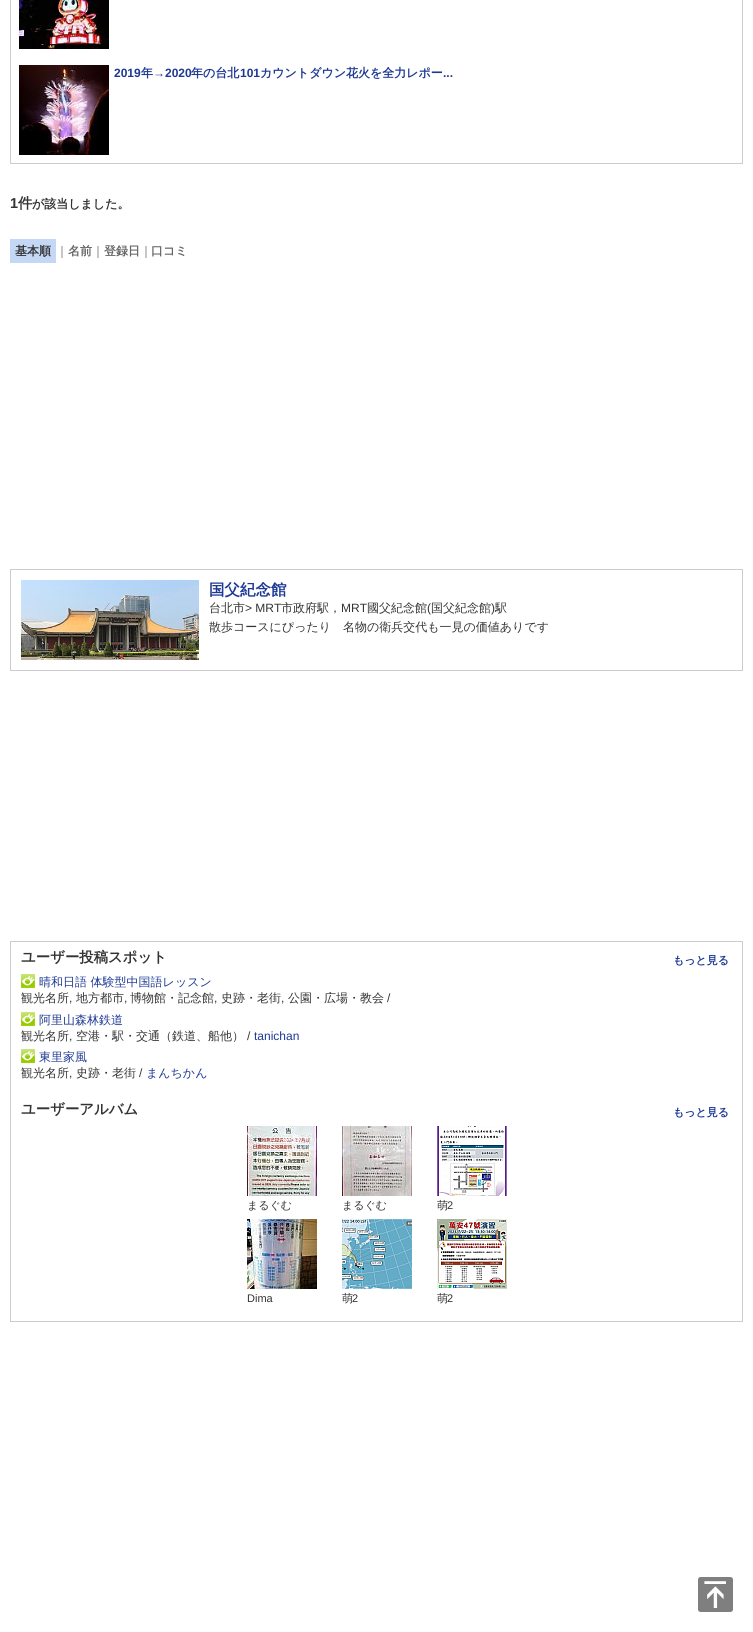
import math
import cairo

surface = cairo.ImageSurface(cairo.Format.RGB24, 753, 1632)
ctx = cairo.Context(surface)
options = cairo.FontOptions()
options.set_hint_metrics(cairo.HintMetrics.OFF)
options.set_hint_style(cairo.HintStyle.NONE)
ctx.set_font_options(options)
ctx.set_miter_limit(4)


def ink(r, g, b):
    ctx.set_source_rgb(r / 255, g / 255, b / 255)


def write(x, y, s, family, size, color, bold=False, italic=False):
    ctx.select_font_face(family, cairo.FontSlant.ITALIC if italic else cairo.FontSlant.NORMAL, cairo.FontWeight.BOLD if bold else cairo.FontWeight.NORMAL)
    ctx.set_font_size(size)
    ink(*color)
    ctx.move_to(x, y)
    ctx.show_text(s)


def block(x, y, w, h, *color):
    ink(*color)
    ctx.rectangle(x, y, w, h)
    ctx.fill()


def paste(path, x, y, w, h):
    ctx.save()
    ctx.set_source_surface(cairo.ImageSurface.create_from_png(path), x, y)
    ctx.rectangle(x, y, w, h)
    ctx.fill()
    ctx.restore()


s1 = dict(family="Liberation Sans", size=12, color=(29, 57, 148), bold=True)
s2 = dict(family="WenQuanYi Zen Hei", size=12, color=(29, 57, 148), bold=True)
s3 = dict(family="Liberation Sans", size=14.4, color=(51, 51, 51), bold=True)
s4 = dict(family="WenQuanYi Zen Hei", size=14.4, color=(51, 51, 51), bold=True)
s5 = dict(family="WenQuanYi Zen Hei", size=12, color=(51, 51, 51), bold=True)
s6 = dict(family="WenQuanYi Zen Hei Medium", size=12, color=(102, 102, 102))
s7 = dict(family="WenQuanYi Zen Hei", size=12, color=(102, 102, 102), bold=True)
s8 = dict(family="WenQuanYi Zen Hei", size=15.5, color=(29, 57, 148), bold=True)
s9 = dict(family="WenQuanYi Zen Hei Medium", size=12, color=(51, 51, 51))
s10 = dict(family="Liberation Sans", size=12, color=(51, 51, 51))
s11 = dict(family="WenQuanYi Zen Hei", size=11, color=(29, 57, 148), bold=True)
s12 = dict(family="WenQuanYi Zen Hei Medium", size=12, color=(29, 57, 148))
s13 = dict(family="Liberation Sans", size=12, color=(29, 57, 148))
s14 = dict(family="WenQuanYi Zen Hei Medium", size=11, color=(51, 51, 51))
s15 = dict(family="Liberation Sans", size=11, color=(51, 51, 51))

ink(255, 255, 255)
ctx.paint()
ctx.rectangle(10.5, -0.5, 732, 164)
ink(204, 204, 204)
ctx.set_line_width(1)
ctx.stroke()
paste("pic1.png", 19, 0, 90, 49)
paste("pic2.png", 19, 65, 90, 90)
write(114, 77, "2019", **s1)
write(141, 77, "年", **s2)
write(153, 77, "→2020", **s1)
write(191, 77, "年の台北", **s2)
write(240, 77, "101", **s1)
write(260, 77, "カウントダウン花火を全力レポー", **s2)
write(443, 77, "...", **s1)
write(10, 208, "1", **s3)
write(18, 208, "件", **s4)
write(32, 208, "が該当しました。", **s5)
block(10, 239, 46, 24, 196, 216, 246)
write(15, 255, "基本順", **s5)
write(56, 255, "｜", **s6)
write(68, 255, "名前", **s7)
write(92, 255, "｜", **s6)
write(104, 255, "登録日", **s7)
write(140, 255, "｜", **s6)
write(151, 255, "口コミ", **s7)
ctx.rectangle(10.5, 569.5, 732, 101)
ink(204, 204, 204)
ctx.stroke()
paste("pic3.png", 21, 580, 178, 80)
write(209, 595, "国父紀念館", **s8)
write(209, 612, "台北市", **s9)
write(245, 612, "> MRT", **s10)
write(281, 612, "市政府駅，", **s9)
write(341, 612, "MRT", **s10)
write(367, 612, "國父紀念館", **s9)
write(427, 612, "(", **s10)
write(431, 612, "国父紀念館", **s9)
write(491, 612, ")", **s10)
write(495, 612, "駅", **s9)
write(209, 631, "散歩コースにぴったり　名物の衛兵交代も一見の価値ありです", **s9)
ctx.rectangle(10.5, 941.5, 732, 380)
ink(204, 204, 204)
ctx.stroke()
write(21, 962, "ユーザー投稿スポット", **s4)
write(673, 964, "もっと見る", **s11)
paste("pic4.png", 21, 974, 14, 14)
write(39, 986, "晴和日語 体験型中国語レッスン", **s12)
write(21, 1002, "観光名所", **s9)
write(69, 1002, ",", **s10)
write(76, 1002, "地方都市", **s9)
write(124, 1002, ",", **s10)
write(130, 1002, "博物館・記念館", **s9)
write(214, 1002, ",", **s10)
write(221, 1002, "史跡・老街", **s9)
write(281, 1002, ",", **s10)
write(288, 1002, "公園・広場・教会", **s9)
write(387, 1002, "/", **s10)
paste("pic4.png", 21, 1012, 14, 14)
write(39, 1024, "阿里山森林鉄道", **s12)
write(21, 1040, "観光名所", **s9)
write(69, 1040, ",", **s10)
write(76, 1040, "空港・駅・交通（鉄道、船他）", **s9)
write(247, 1040, "/", **s10)
write(254, 1040, "tanichan", **s13)
paste("pic4.png", 21, 1049, 14, 14)
write(39, 1061, "東里家風", **s12)
write(21, 1077, "観光名所", **s9)
write(69, 1077, ",", **s10)
write(76, 1077, "史跡・老街", **s9)
write(139, 1077, "/", **s10)
write(146, 1077, "まんちかん", **s12)
write(21, 1114, "ユーザーアルバム", **s4)
write(673, 1116, "もっと見る", **s11)
paste("pic5.png", 247, 1126, 70, 70)
write(247, 1209, "まるぐむ", **s14)
paste("pic6.png", 342, 1126, 70, 70)
write(342, 1209, "まるぐむ", **s14)
paste("pic7.png", 437, 1126, 70, 70)
write(437, 1209, "萌", **s14)
write(447, 1209, "2", **s15)
paste("pic8.png", 247, 1219, 70, 70)
write(247, 1302, "Dima", **s15)
paste("pic9.png", 342, 1219, 70, 70)
write(342, 1302, "萌", **s14)
write(352, 1302, "2", **s15)
paste("pic10.png", 437, 1219, 70, 70)
write(437, 1302, "萌", **s14)
write(447, 1302, "2", **s15)
paste("pic11.png", 698, 1577, 35, 35)
surface.write_to_png("screenshot.png")
